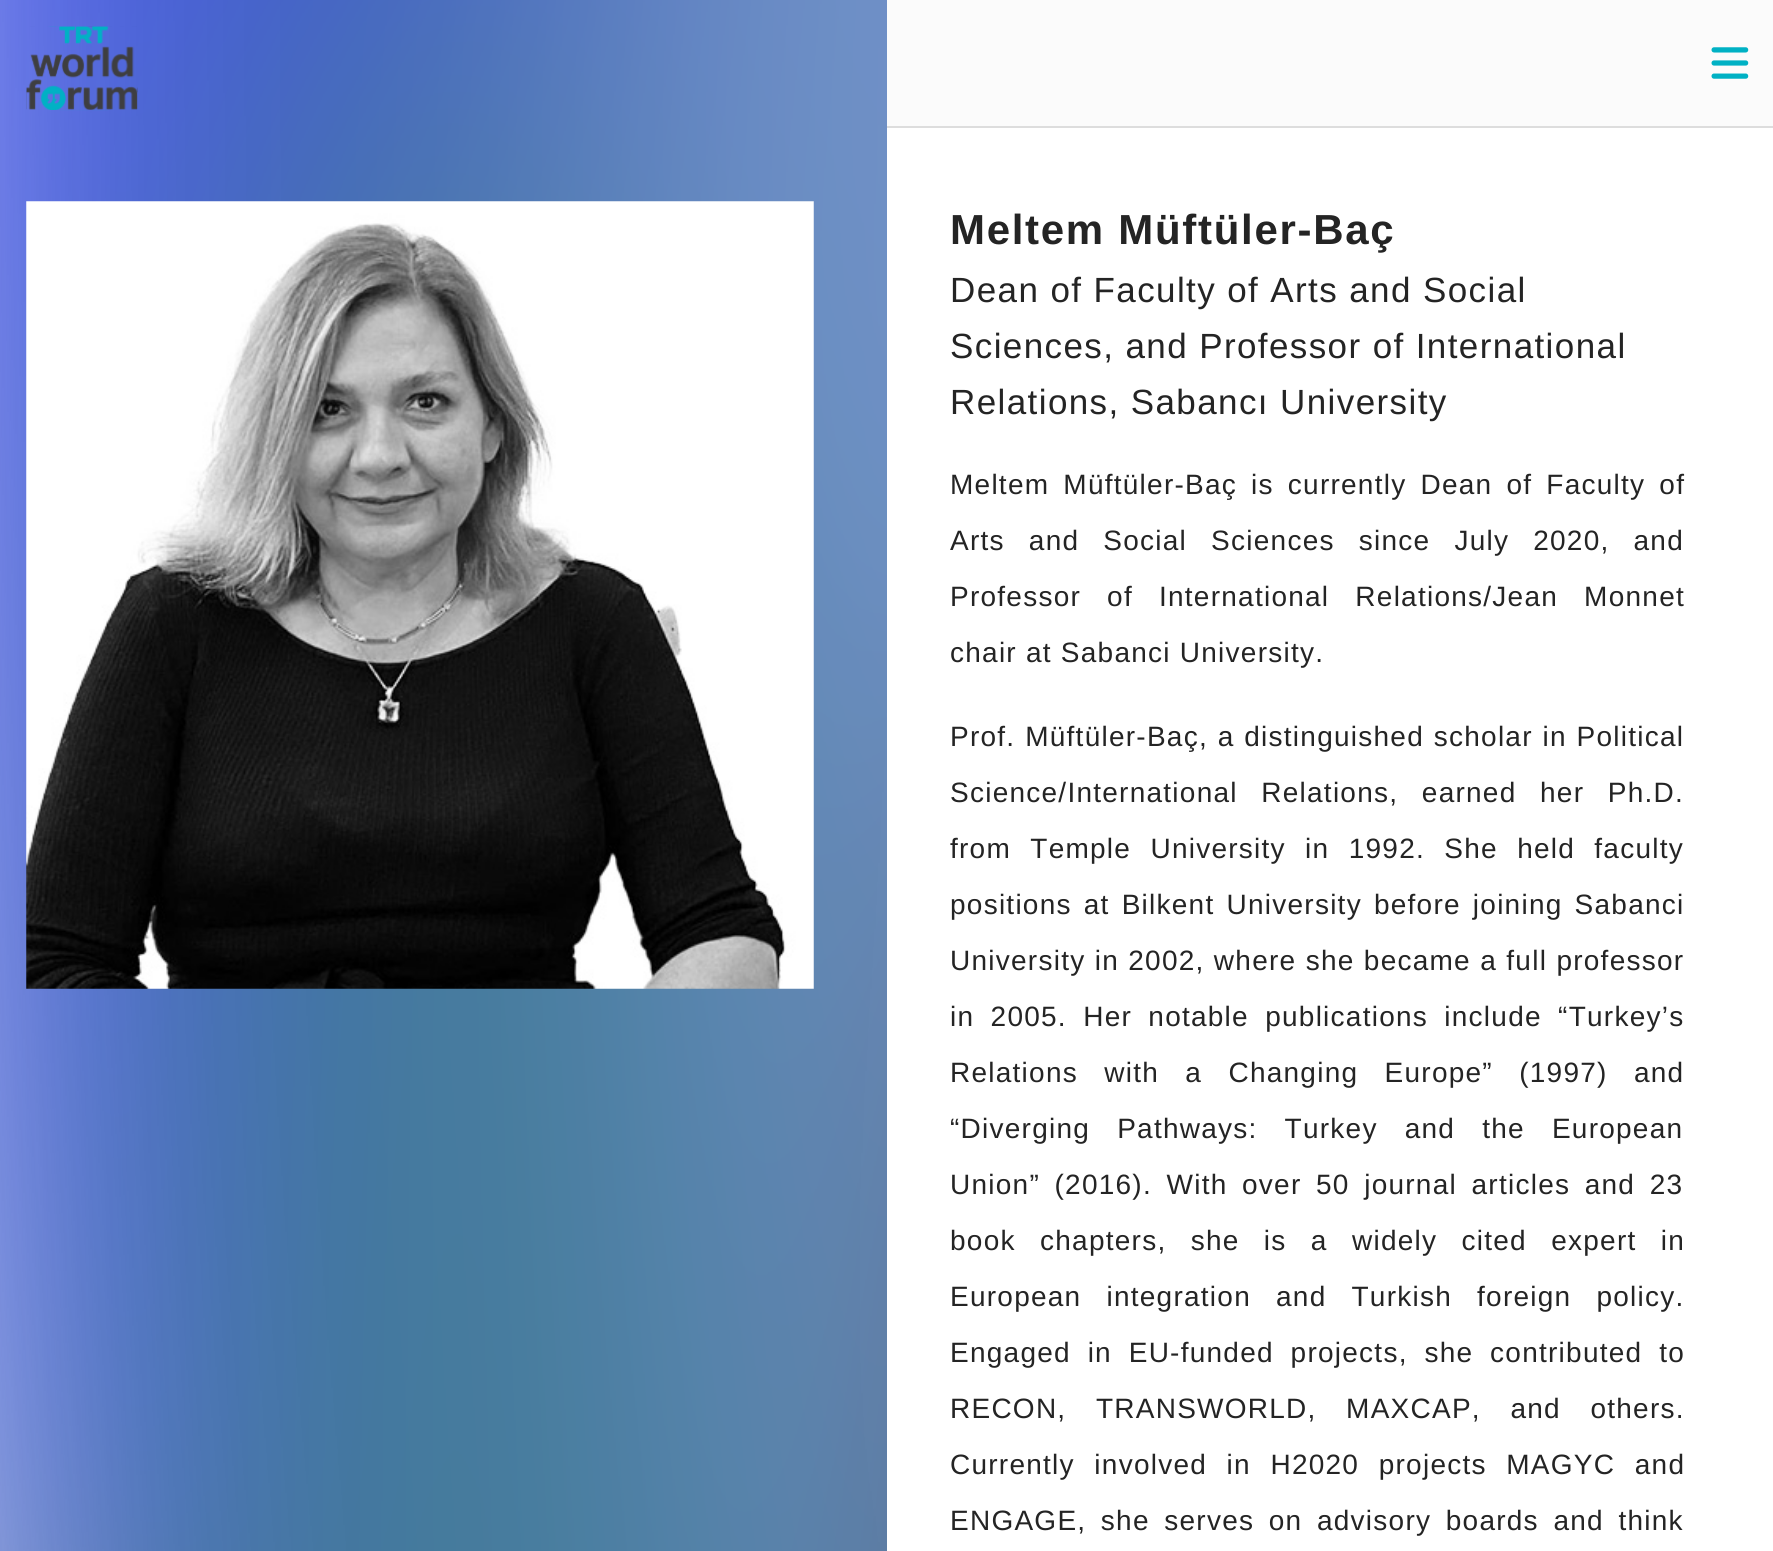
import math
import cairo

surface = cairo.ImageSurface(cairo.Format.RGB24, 1773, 1551)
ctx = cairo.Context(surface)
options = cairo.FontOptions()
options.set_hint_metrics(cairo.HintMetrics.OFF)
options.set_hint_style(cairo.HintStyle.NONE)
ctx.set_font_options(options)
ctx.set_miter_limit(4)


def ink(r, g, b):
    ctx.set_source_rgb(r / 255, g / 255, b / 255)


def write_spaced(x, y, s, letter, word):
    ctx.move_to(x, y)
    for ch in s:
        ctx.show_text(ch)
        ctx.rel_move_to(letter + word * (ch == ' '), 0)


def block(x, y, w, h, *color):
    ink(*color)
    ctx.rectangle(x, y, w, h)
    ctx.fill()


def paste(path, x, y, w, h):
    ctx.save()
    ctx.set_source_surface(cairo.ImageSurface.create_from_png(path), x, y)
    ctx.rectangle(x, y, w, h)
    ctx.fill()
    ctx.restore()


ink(255, 255, 255)
ctx.paint()
paste("pic1.png", 0, 0, 887, 1551)
block(887, 0, 886, 126, 251, 251, 251)
block(887, 126, 886, 2, 221, 221, 221)
paste("pic2.png", 26, 26, 112, 85)
paste("pic3.png", 1711, 47, 38, 32)
paste("pic4.png", 26, 201, 788, 788)
ctx.select_font_face("Liberation Sans", cairo.FontSlant.NORMAL, cairo.FontWeight.BOLD)
ctx.set_font_size(42)
ink(36, 36, 36)
write_spaced(950, 244, "Meltem Müftüler-Baç", 1.7, 0)
ctx.select_font_face("Liberation Sans")
ctx.set_font_size(35)
write_spaced(950, 302, "Dean of Faculty of Arts and Social", 1.4, 0)
write_spaced(950, 358, "Sciences, and Professor of International", 1.4, 0)
write_spaced(950, 414, "Relations, Sabancı University", 1.4, 0)
ctx.set_font_size(28)
write_spaced(950, 494, "Meltem Müftüler-Baç is currently Dean of Faculty of", 1.25, 5)
write_spaced(950, 550, "Arts and Social Sciences since July 2020, and", 1.25, 15)
write_spaced(950, 606, "Professor of International Relations/Jean Monnet", 1.25, 17)
write_spaced(950, 662, "chair at Sabanci University.", 1.25, 0)
write_spaced(950, 746, "Prof. Müftüler-Baç, a distinguished scholar in Political", 1.25, 0.75)
write_spaced(950, 802, "Science/International Relations, earned her Ph.D.", 1.25, 14.5)
write_spaced(950, 858, "from Temple University in 1992. She held faculty", 1.25, 10.25)
write_spaced(950, 914, "positions at Bilkent University before joining Sabanci", 1.25, 3)
write_spaced(950, 970, "University in 2002, where she became a full professor", 1.25, 0.25)
write_spaced(950, 1026, "in 2005. Her notable publications include “Turkey’s", 1.25, 7.25)
write_spaced(950, 1082, "Relations with a Changing Europe” (1997) and", 1.25, 17.25)
write_spaced(950, 1138, "“Diverging Pathways: Turkey and the European", 1.25, 18)
write_spaced(950, 1194, "Union” (2016). With over 50 journal articles and 23", 1.25, 5.5)
write_spaced(950, 1250, "book chapters, she is a widely cited expert in", 1.25, 15.25)
write_spaced(950, 1306, "European integration and Turkish foreign policy.", 1.25, 16)
write_spaced(950, 1362, "Engaged in EU-funded projects, she contributed to", 1.25, 7.75)
write_spaced(950, 1418, "RECON, TRANSWORLD, MAXCAP, and others.", 1.25, 20.5)
write_spaced(950, 1474, "Currently involved in H2020 projects MAGYC and", 1.25, 10.5)
write_spaced(950, 1530, "ENGAGE, she serves on advisory boards and think", 1.25, 5.5)
surface.write_to_png("screenshot.png")
